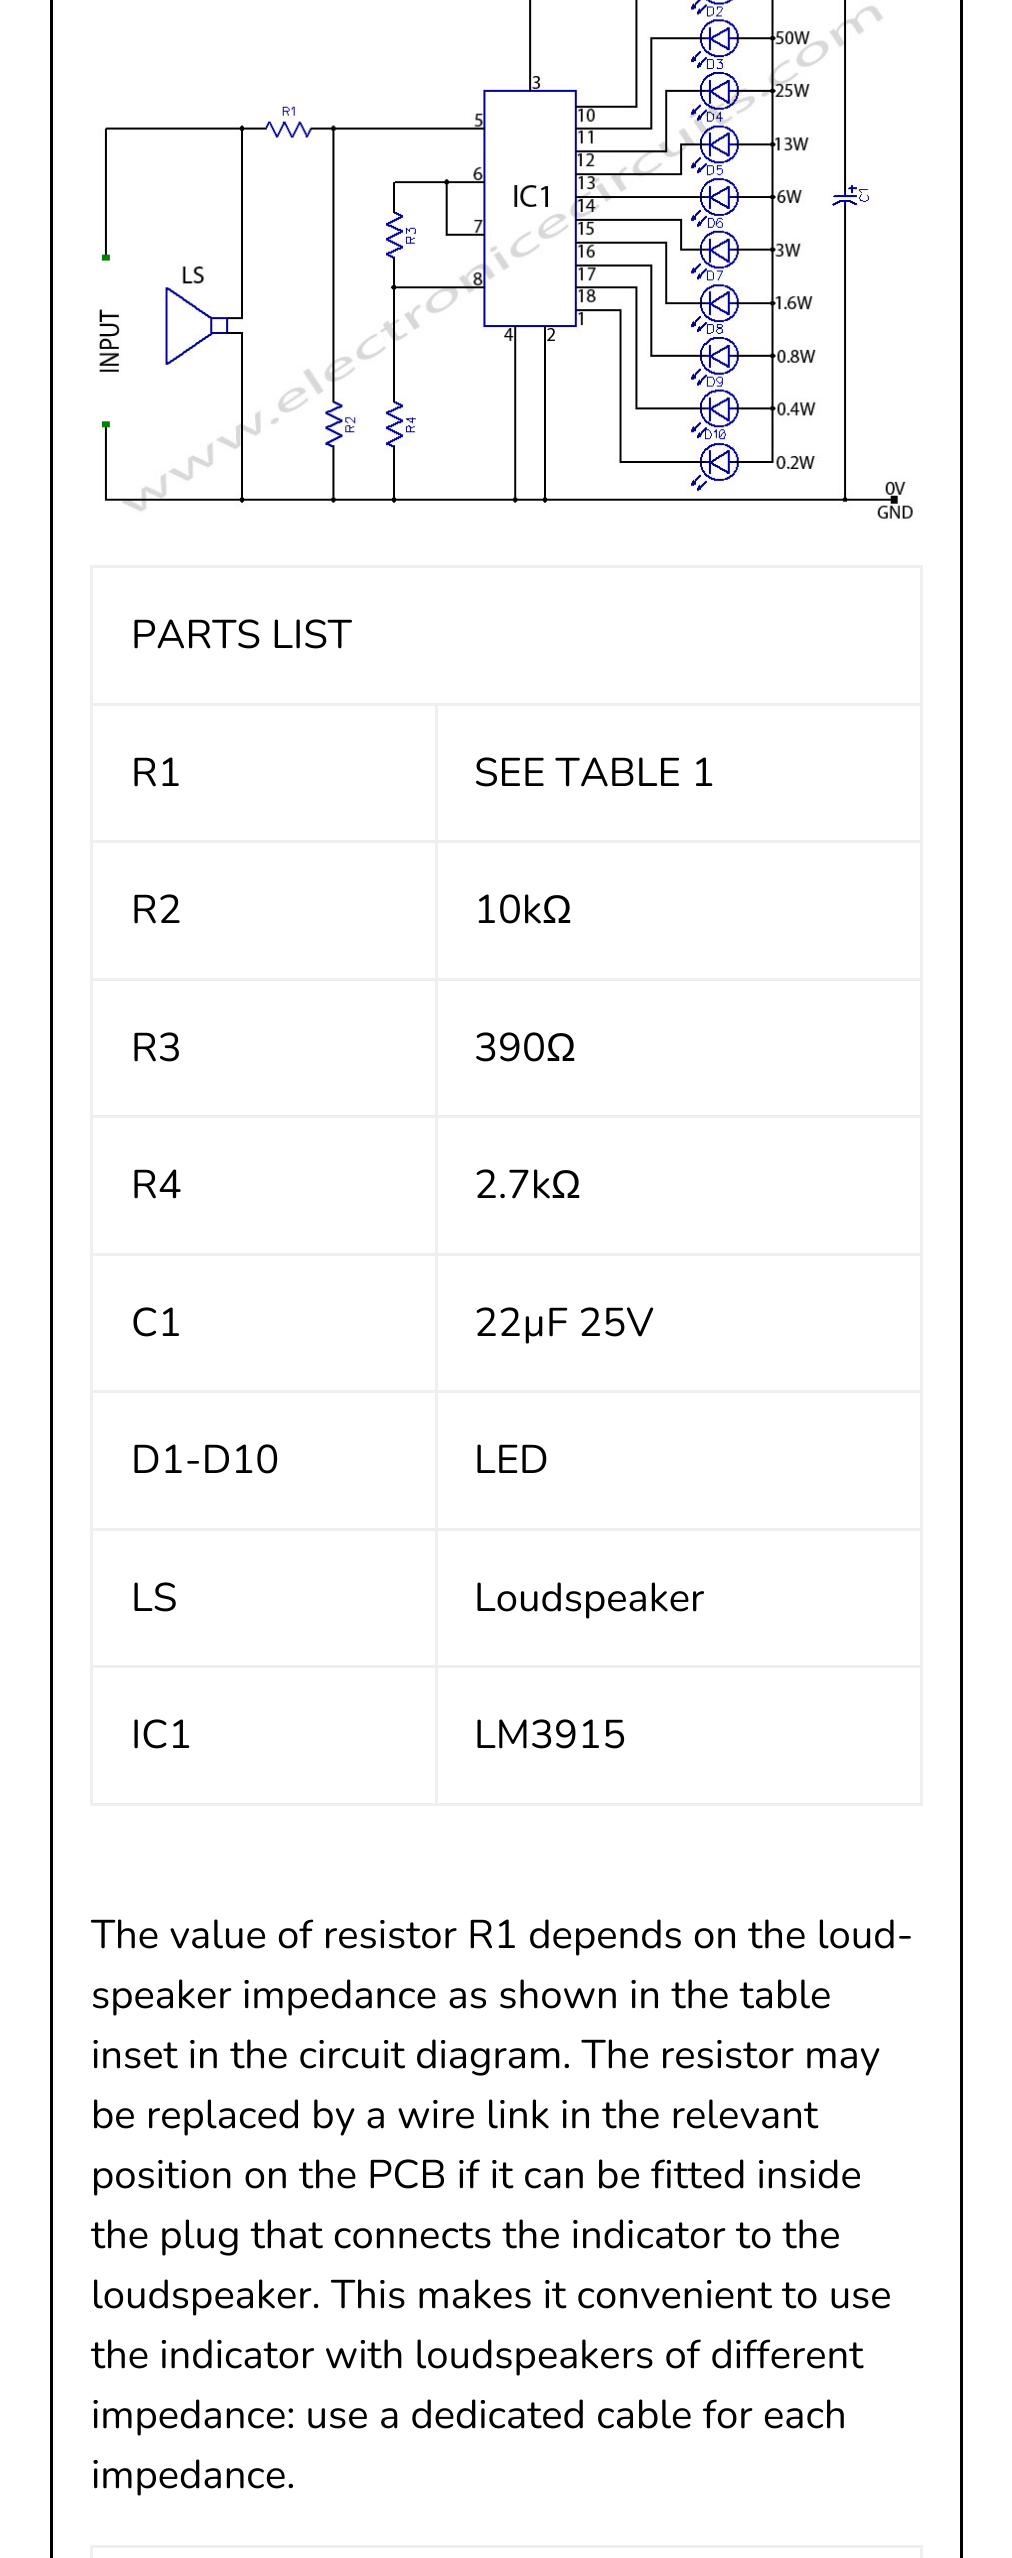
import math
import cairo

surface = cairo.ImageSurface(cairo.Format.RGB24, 1012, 2558)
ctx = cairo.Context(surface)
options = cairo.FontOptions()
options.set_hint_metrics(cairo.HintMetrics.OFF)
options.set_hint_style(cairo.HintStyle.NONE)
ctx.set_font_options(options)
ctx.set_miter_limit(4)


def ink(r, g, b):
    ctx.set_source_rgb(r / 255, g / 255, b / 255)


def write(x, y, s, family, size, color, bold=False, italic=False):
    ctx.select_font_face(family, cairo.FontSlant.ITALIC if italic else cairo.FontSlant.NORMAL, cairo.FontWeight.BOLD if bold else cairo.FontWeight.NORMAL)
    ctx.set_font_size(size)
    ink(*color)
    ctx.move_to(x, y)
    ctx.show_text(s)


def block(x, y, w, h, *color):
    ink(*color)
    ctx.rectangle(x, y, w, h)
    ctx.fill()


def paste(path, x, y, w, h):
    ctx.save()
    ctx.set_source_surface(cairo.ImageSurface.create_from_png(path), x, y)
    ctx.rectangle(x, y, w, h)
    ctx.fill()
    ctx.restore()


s1 = dict(family="Nunito", size=40, color=(0, 0, 0))
s2 = dict(family="Liberation Sans", size=40, color=(0, 0, 0))

ink(255, 255, 255)
ctx.paint()
ctx.rectangle(51.5, -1.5, 910, 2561)
ink(0, 0, 0)
ctx.set_line_width(3)
ctx.stroke()
paste("pic1.png", 98, 0, 817, 522)
block(90, 565, 833, 3, 239, 239, 239)
block(920, 565, 3, 1240, 239, 239, 239)
block(90, 1803, 833, 3, 239, 239, 239)
block(90, 565, 3, 1240, 239, 239, 239)
write(131, 648, "PARTS LIST", **s1)
block(435, 703, 488, 3, 239, 239, 239)
block(435, 840, 488, 3, 239, 239, 239)
block(435, 978, 488, 3, 239, 239, 239)
block(435, 1115, 488, 3, 239, 239, 239)
block(435, 1253, 488, 3, 239, 239, 239)
block(435, 1390, 488, 3, 239, 239, 239)
block(435, 1528, 488, 3, 239, 239, 239)
block(435, 1665, 488, 3, 239, 239, 239)
block(435, 1665, 3, 140, 239, 239, 239)
block(90, 1665, 348, 3, 239, 239, 239)
block(435, 1528, 3, 140, 239, 239, 239)
block(90, 1528, 348, 3, 239, 239, 239)
block(435, 1390, 3, 140, 239, 239, 239)
block(90, 1390, 348, 3, 239, 239, 239)
block(435, 1253, 3, 140, 239, 239, 239)
block(90, 1253, 348, 3, 239, 239, 239)
block(435, 1115, 3, 140, 239, 239, 239)
block(90, 1115, 348, 3, 239, 239, 239)
block(435, 978, 3, 140, 239, 239, 239)
block(90, 978, 348, 3, 239, 239, 239)
block(435, 840, 3, 140, 239, 239, 239)
block(90, 840, 348, 3, 239, 239, 239)
block(435, 703, 3, 140, 239, 239, 239)
block(90, 703, 348, 3, 239, 239, 239)
write(131, 786, "R1", **s1)
write(474, 786, "SEE TABLE 1", **s1)
write(131, 923, "R2", **s1)
write(474, 923, "10k", **s1)
write(542, 923, "Ω", **s2)
write(131, 1061, "R3", **s1)
write(474, 1061, "390", **s1)
write(546, 1061, "Ω", **s2)
write(131, 1198, "R4", **s1)
write(474, 1198, "2.7k", **s1)
write(551, 1198, "Ω", **s2)
write(131, 1336, "C1", **s1)
write(474, 1336, "22µF 25V", **s1)
write(131, 1473, "D1-D10", **s1)
write(474, 1473, "LED", **s1)
write(131, 1611, "LS", **s1)
write(474, 1611, "Loudspeaker", **s1)
write(131, 1748, "IC1", **s1)
write(474, 1748, "LM3915", **s1)
write(91, 1948, "The value of resistor R1 depends on the loud-", **s1)
write(91, 2008, "speaker impedance as shown in the table", **s1)
write(91, 2068, "inset in the circuit diagram. The resistor may", **s1)
write(91, 2128, "be replaced by a wire link in the relevant", **s1)
write(91, 2188, "position on the PCB if it can be fitted inside", **s1)
write(91, 2248, "the plug that connects the indicator to the", **s1)
write(91, 2308, "loudspeaker. This makes it convenient to use", **s1)
write(91, 2368, "the indicator with loudspeakers of different", **s1)
write(91, 2428, "impedance: use a dedicated cable for each", **s1)
write(91, 2488, "impedance.", **s1)
block(90, 2545, 833, 3, 239, 239, 239)
block(920, 2545, 3, 13, 239, 239, 239)
block(90, 2545, 3, 13, 239, 239, 239)
surface.write_to_png("screenshot.png")
